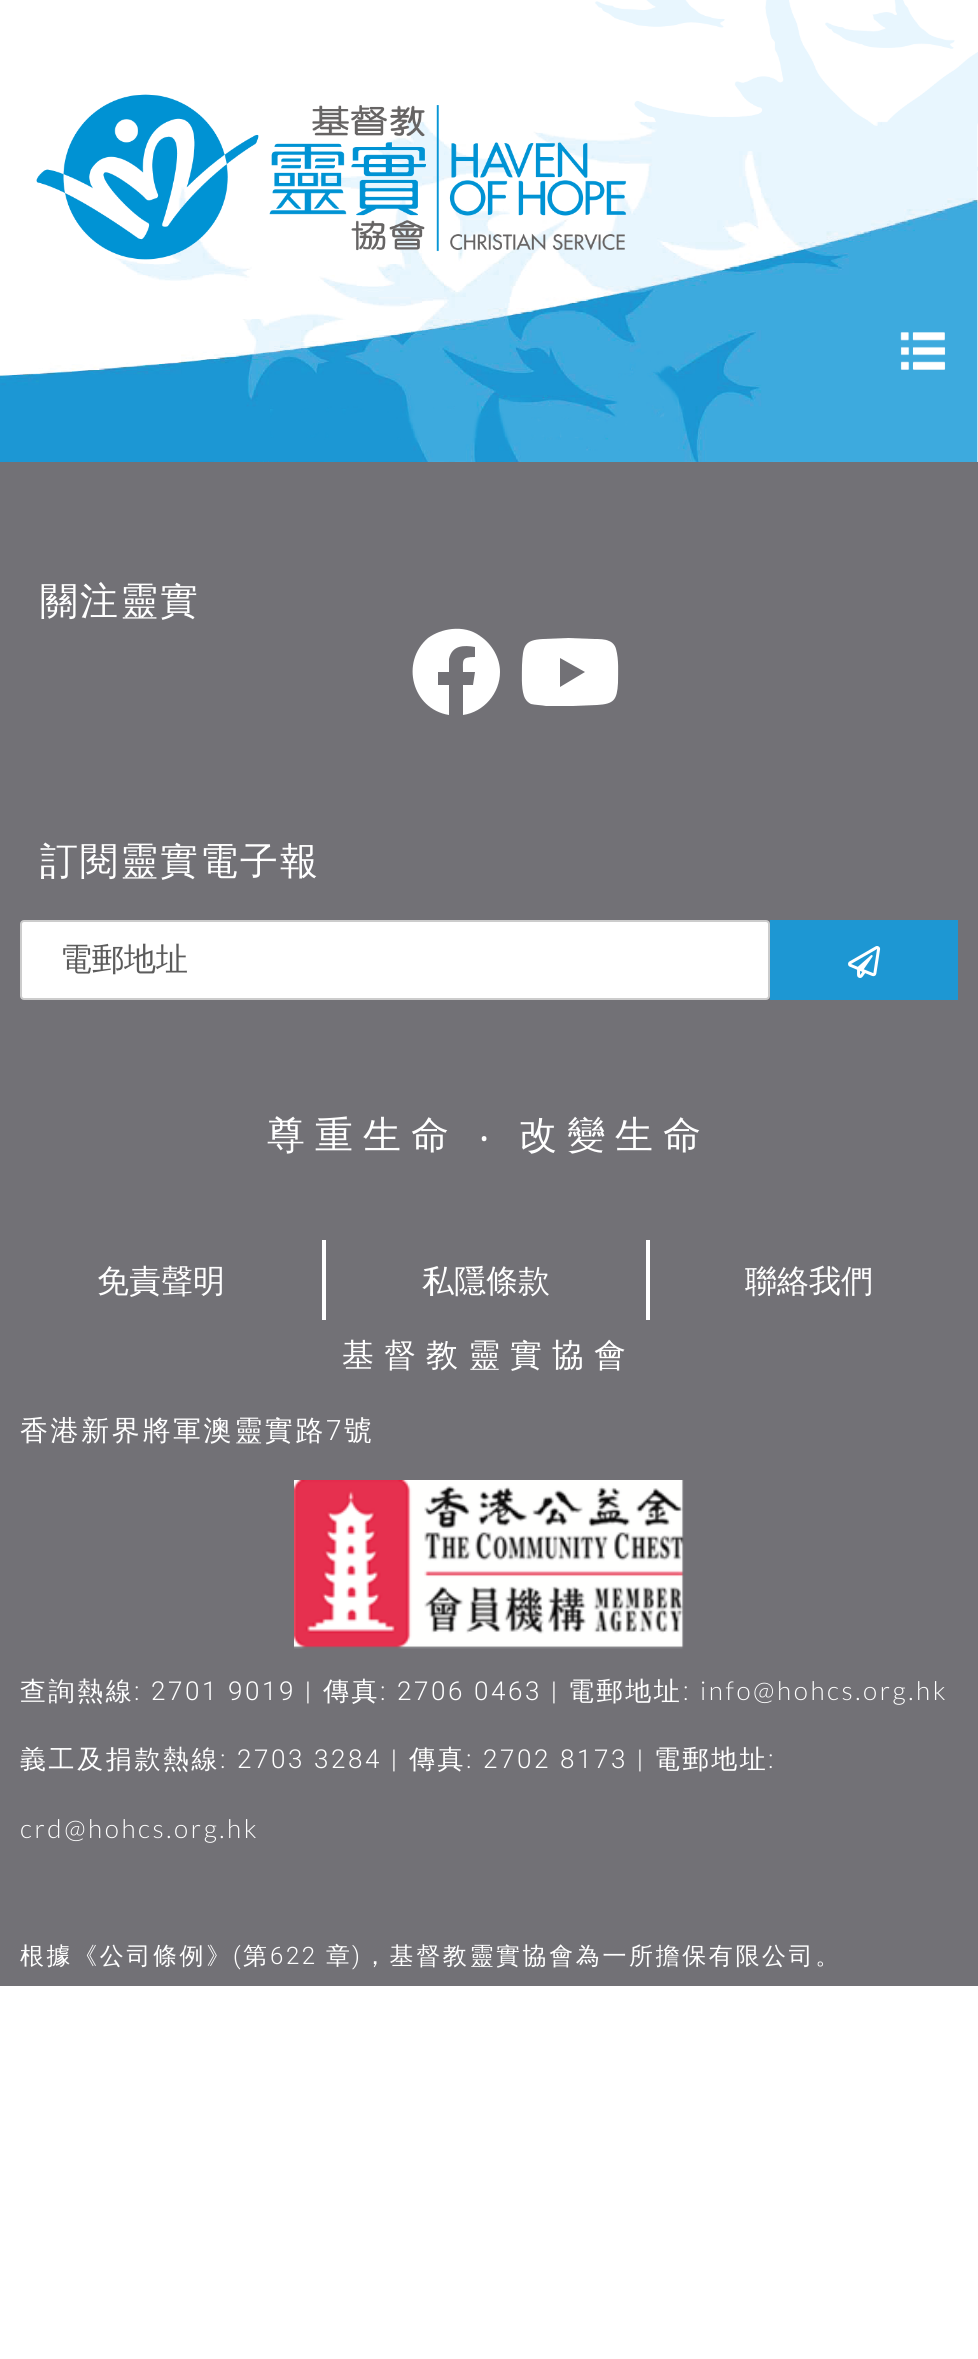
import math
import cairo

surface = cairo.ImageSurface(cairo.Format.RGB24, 978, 2359)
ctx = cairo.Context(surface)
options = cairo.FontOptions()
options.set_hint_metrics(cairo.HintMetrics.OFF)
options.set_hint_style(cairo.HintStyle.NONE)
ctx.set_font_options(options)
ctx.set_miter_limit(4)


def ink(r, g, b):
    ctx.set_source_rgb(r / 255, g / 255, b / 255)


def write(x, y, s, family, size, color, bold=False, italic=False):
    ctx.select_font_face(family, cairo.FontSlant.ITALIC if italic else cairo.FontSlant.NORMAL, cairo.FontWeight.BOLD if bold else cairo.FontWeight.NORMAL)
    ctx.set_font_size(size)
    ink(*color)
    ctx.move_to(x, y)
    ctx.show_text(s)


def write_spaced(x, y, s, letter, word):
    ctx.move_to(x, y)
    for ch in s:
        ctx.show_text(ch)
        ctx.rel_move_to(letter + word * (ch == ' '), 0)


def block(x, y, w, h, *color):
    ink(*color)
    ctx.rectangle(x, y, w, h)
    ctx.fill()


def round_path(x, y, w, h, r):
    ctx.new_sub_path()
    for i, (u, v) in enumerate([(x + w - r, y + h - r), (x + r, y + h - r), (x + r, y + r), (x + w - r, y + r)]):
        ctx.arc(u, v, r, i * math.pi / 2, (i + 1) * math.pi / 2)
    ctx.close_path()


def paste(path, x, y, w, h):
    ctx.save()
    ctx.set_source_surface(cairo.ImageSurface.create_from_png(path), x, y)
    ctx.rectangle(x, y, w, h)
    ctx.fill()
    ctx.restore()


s1 = dict(family="WenQuanYi Zen Hei Medium", size=32, color=(92, 92, 92))
s2 = dict(family="WenQuanYi Zen Hei Medium", size=32, color=(255, 255, 255))

ink(255, 255, 255)
ctx.paint()
paste("pic1.png", 0, 0, 978, 462)
paste("pic2.png", 36, 94, 591, 166)
paste("pic3.png", 900, 332, 46, 38)
block(0, 462, 978, 1524, 114, 113, 118)
ctx.select_font_face("WenQuanYi Zen Hei Medium")
ctx.set_font_size(38)
ink(255, 255, 255)
write_spaced(40, 614, "關注靈實", 2, 0)
ctx.new_path()
ctx.move_to(500, 672)
ctx.curve_to(500, 693, 484, 712, 463, 715)
ctx.line_to(463, 685)
ctx.line_to(473, 685)
ctx.line_to(475, 672)
ctx.line_to(463, 672)
ctx.curve_to(463, 660, 461, 657, 475, 657)
ctx.line_to(475, 647)
ctx.curve_to(464, 645, 452, 645, 449, 659)
ctx.line_to(449, 672)
ctx.line_to(438, 672)
ctx.line_to(438, 685)
ctx.line_to(449, 685)
ctx.line_to(449, 715)
ctx.curve_to(412, 709, 400, 662, 428, 638)
ctx.curve_to(435, 633, 443, 630, 452, 629)
ctx.curve_to(462, 628, 472, 630, 480, 636)
ctx.curve_to(492, 644, 500, 658, 500, 672)
ctx.close_path()
ctx.fill()
ctx.new_path()
ctx.move_to(616, 649)
ctx.curve_to(619, 660, 618, 672, 618, 683)
ctx.curve_to(617, 700, 614, 704, 597, 705)
ctx.line_to(573, 706)
ctx.line_to(546, 706)
ctx.curve_to(541, 705, 535, 705, 531, 704)
ctx.curve_to(527, 702, 525, 699, 524, 696)
ctx.curve_to(521, 687, 522, 674, 522, 665)
ctx.curve_to(523, 646, 524, 640, 543, 639)
ctx.line_to(568, 638)
ctx.line_to(594, 639)
ctx.curve_to(599, 639, 605, 639, 609, 641)
ctx.curve_to(612, 642, 615, 645, 616, 649)
ctx.close_path()
ctx.move_to(560, 687)
ctx.line_to(585, 672)
ctx.line_to(560, 658)
ctx.close_path()
ctx.fill()
write_spaced(40, 874, "訂閱靈實電子報", 2, 0)
round_path(21, 921, 748, 78, 3)
ctx.fill_preserve()
ink(204, 204, 204)
ctx.stroke()
write(60, 970, "電郵地址", **s1)
block(770, 920, 188, 80, 29, 151, 211)
paste("pic4.png", 848, 946, 33, 32)
ctx.set_font_size(38)
ink(255, 255, 255)
write_spaced(267, 1148, "尊重生命", 10, 0)
ctx.select_font_face("Noto Sans")
write_spaced(479, 1148, "‧", 10, 0)
ctx.select_font_face("WenQuanYi Zen Hei Medium")
write_spaced(519, 1148, "改變生命", 10, 0)
write(97, 1292, "免責聲明", **s2)
block(322, 1240, 4, 80, 255, 255, 255)
write(422, 1292, "私隱條款", **s2)
block(646, 1240, 4, 80, 255, 255, 255)
write(745, 1292, "聯絡我們", **s2)
write_spaced(342, 1366, "基督教靈實協會", 10, 0)
ctx.set_font_size(28)
write_spaced(20, 1440, "香港新界將軍澳靈實路", 2.6, 0)
ctx.select_font_face("Roboto Light")
write_spaced(326, 1440, "7", 2.6, 0)
ctx.select_font_face("WenQuanYi Zen Hei Medium")
write_spaced(344, 1440, "號", 2.6, 0)
paste("pic5.png", 294, 1480, 390, 169)
ctx.set_font_size(26)
write_spaced(20, 1700, "查詢熱線", 2.6, 0)
ctx.select_font_face("Roboto Light")
write_spaced(134, 1700, ": 2701 9019 |", 2.6, 0)
ctx.select_font_face("WenQuanYi Zen Hei Medium")
write_spaced(323, 1700, "傳真", 2.6, 0)
ctx.select_font_face("Roboto Light")
write_spaced(380, 1700, ": 2706 0463 |", 2.6, 0)
ctx.select_font_face("WenQuanYi Zen Hei Medium")
write_spaced(568, 1700, "電郵地址", 2.6, 0)
ctx.select_font_face("Roboto Light")
write_spaced(683, 1700, ":", 2.6, 0)
ctx.select_font_face("Lato Light")
write_spaced(700, 1700, "info@hohcs.org.hk", 2.6, 0)
ctx.select_font_face("WenQuanYi Zen Hei Medium")
write_spaced(20, 1768, "義工及捐款熱線", 2.6, 0)
ctx.select_font_face("Roboto Light")
write_spaced(220, 1768, ": 2703 3284 |", 2.6, 0)
ctx.select_font_face("WenQuanYi Zen Hei Medium")
write_spaced(409, 1768, "傳真", 2.6, 0)
ctx.select_font_face("Roboto Light")
write_spaced(466, 1768, ": 2702 8173 |", 2.6, 0)
ctx.select_font_face("WenQuanYi Zen Hei Medium")
write_spaced(654, 1768, "電郵地址", 2.6, 0)
ctx.select_font_face("Roboto Light")
write_spaced(768, 1768, ":", 2.6, 0)
ctx.select_font_face("Lato Light")
write_spaced(20, 1838, "crd@hohcs.org.hk", 2.6, 0)
ctx.select_font_face("WenQuanYi Zen Hei Medium")
ctx.set_font_size(24)
write_spaced(20, 1964, "根據《公司條例》", 2.6, 0)
ctx.select_font_face("Roboto Light")
write_spaced(233, 1964, "(", 2.6, 0)
ctx.select_font_face("WenQuanYi Zen Hei Medium")
write_spaced(243, 1964, "第", 2.6, 0)
ctx.select_font_face("Roboto Light")
write_spaced(270, 1964, "622", 2.6, 0)
ctx.select_font_face("WenQuanYi Zen Hei Medium")
write_spaced(326, 1964, "章", 2.6, 0)
ctx.select_font_face("Roboto Light")
write_spaced(352, 1964, ")", 2.6, 0)
ctx.select_font_face("WenQuanYi Zen Hei Medium")
write_spaced(363, 1964, "，基督教靈實協會為一所擔保有限公司。", 2.6, 0)
surface.write_to_png("screenshot.png")
